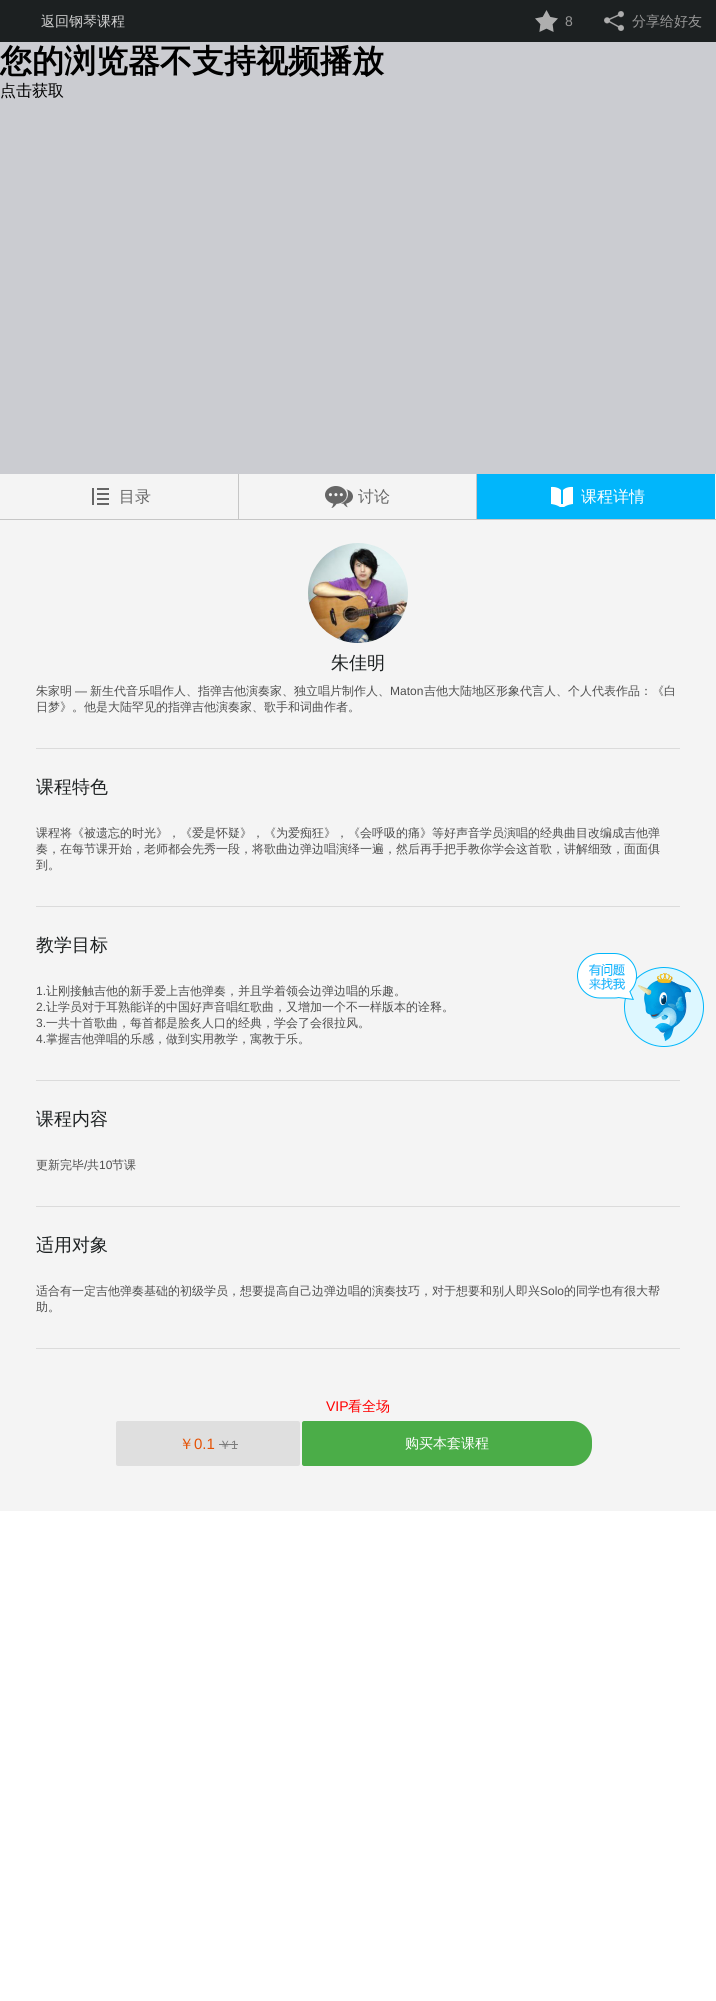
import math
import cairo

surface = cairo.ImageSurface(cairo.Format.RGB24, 716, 2001)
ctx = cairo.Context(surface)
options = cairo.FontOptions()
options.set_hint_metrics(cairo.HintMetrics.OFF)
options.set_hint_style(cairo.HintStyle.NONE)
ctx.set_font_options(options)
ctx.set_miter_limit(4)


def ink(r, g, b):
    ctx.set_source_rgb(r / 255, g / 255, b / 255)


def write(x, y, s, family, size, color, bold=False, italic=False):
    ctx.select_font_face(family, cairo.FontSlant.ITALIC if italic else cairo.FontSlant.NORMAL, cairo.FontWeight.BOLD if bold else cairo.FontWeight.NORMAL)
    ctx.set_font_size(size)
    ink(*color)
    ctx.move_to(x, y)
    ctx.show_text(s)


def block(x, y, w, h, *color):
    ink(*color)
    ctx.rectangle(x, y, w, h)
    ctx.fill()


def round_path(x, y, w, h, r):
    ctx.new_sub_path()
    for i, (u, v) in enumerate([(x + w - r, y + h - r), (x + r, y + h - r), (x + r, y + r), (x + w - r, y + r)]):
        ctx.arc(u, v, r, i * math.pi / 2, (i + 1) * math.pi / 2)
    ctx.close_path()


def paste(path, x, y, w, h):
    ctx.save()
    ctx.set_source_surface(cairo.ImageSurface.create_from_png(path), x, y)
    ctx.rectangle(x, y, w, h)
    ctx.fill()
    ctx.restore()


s1 = dict(family="WenQuanYi Zen Hei Medium", size=14, color=(210, 210, 210))
s2 = dict(family="Liberation Sans", size=14, color=(151, 151, 151))
s3 = dict(family="WenQuanYi Zen Hei Medium", size=14, color=(151, 151, 151))
s4 = dict(family="WenQuanYi Zen Hei", size=32, color=(0, 0, 0), bold=True)
s5 = dict(family="WenQuanYi Zen Hei Medium", size=16, color=(0, 0, 0))
s6 = dict(family="WenQuanYi Zen Hei Medium", size=16, color=(102, 102, 102))
s7 = dict(family="WenQuanYi Zen Hei Medium", size=16, color=(255, 255, 255))
s8 = dict(family="WenQuanYi Zen Hei Medium", size=18, color=(29, 33, 34))
s9 = dict(family="WenQuanYi Zen Hei Medium", size=12, color=(78, 78, 78))
s10 = dict(family="Liberation Sans", size=12, color=(78, 78, 78))
s11 = dict(family="Liberation Sans", size=14, color=(255, 0, 0))
s12 = dict(family="WenQuanYi Zen Hei Medium", size=14, color=(255, 0, 0))
s13 = dict(family="WenQuanYi Zen Hei Medium", size=15, color=(229, 82, 4))
s14 = dict(family="Liberation Sans", size=15, color=(229, 82, 4))
s15 = dict(family="WenQuanYi Zen Hei Medium", size=12, color=(122, 122, 122))
s16 = dict(family="Liberation Sans", size=12, color=(122, 122, 122))
s17 = dict(family="WenQuanYi Zen Hei Medium", size=14, color=(255, 255, 255))

ink(255, 255, 255)
ctx.paint()
block(0, 42, 716, 432, 203, 204, 209)
block(0, 0, 716, 42, 28, 32, 33)
write(41, 26, "返回钢琴课程", **s1)
paste("pic1.png", 535, 10, 23, 22)
write(565, 26, "8", **s2)
paste("pic2.png", 604, 11, 20, 20)
write(632, 26, "分享给好友", **s3)
write(0, 72, "您的浏览器不支持视频播放", **s4)
write(0, 96, "点击获取", **s5)
block(0, 474, 716, 45, 244, 244, 244)
block(0, 519, 716, 1, 198, 198, 198)
paste("pic3.png", 92, 488, 17, 17)
write(119, 502, "目录", **s6)
block(476, 474, 1, 45, 198, 198, 198)
block(238, 474, 1, 45, 198, 198, 198)
paste("pic4.png", 325, 486, 28, 22)
write(358, 502, "讨论", **s6)
block(477, 474, 238, 45, 1, 182, 251)
paste("pic5.png", 551, 486, 22, 21)
write(581, 502, "课程详情", **s7)
block(0, 520, 716, 991, 244, 244, 244)
paste("pic6.png", 308, 543, 100, 100)
write(331, 669, "朱佳明", **s8)
block(36, 748, 644, 1, 219, 219, 219)
write(36, 695, "朱家明", **s9)
write(75, 695, "—", **s10)
write(90, 695, "新生代音乐唱作人、指弹吉他演奏家、独立唱片制作人、", **s9)
write(390, 695, "Maton", **s10)
write(424, 695, "吉他大陆地区形象代言人、个人代表作品：《白", **s9)
write(36, 711, "日梦》。他是大陆罕见的指弹吉他演奏家、歌手和词曲作者。", **s9)
write(36, 793, "课程特色", **s8)
block(36, 906, 644, 1, 219, 219, 219)
write(36, 837, "课程将《被遗忘的时光》，《爱是怀疑》，《为爱痴狂》，《会呼吸的痛》等好声音学员演唱的经典曲目改编成吉他弹", **s9)
write(36, 853, "奏，在每节课开始，老师都会先秀一段，将歌曲边弹边唱演绎一遍，然后再手把手教你学会这首歌，讲解细致，面面俱", **s9)
write(36, 869, "到。", **s9)
write(36, 951, "教学目标", **s8)
block(36, 1080, 644, 1, 219, 219, 219)
write(36, 995, "1.", **s10)
write(46, 995, "让刚接触吉他的新手爱上吉他弹奏，并且学着领会边弹边唱的乐趣。", **s9)
write(36, 1011, "2.", **s10)
write(46, 1011, "让学员对于耳熟能详的中国好声音唱红歌曲，又增加一个不一样版本的诠释。", **s9)
write(36, 1027, "3.", **s10)
write(46, 1027, "一共十首歌曲，每首都是脍炙人口的经典，学会了会很拉风。", **s9)
write(36, 1043, "4.", **s10)
write(46, 1043, "掌握吉他弹唱的乐感，做到实用教学，寓教于乐。", **s9)
write(36, 1125, "课程内容", **s8)
block(36, 1206, 644, 1, 219, 219, 219)
write(36, 1169, "更新完毕", **s9)
write(84, 1169, "/", **s10)
write(87, 1169, "共", **s9)
write(99, 1169, "10", **s10)
write(112, 1169, "节课", **s9)
write(36, 1251, "适用对象", **s8)
block(36, 1348, 644, 1, 219, 219, 219)
write(36, 1295, "适合有一定吉他弹奏基础的初级学员，想要提高自己边弹边唱的演奏技巧，对于想要和别人即兴", **s9)
write(540, 1295, "Solo", **s10)
write(564, 1295, "的同学也有很大帮", **s9)
write(36, 1311, "助。", **s9)
write(326, 1411, "VIP", **s11)
write(348, 1411, "看全场", **s12)
ink(223, 223, 223)
round_path(116, 1421, 184, 45, 2)
ctx.fill()
write(179, 1449, "￥", **s13)
write(194, 1449, "0.1", **s14)
write(219, 1449, "￥", **s15)
block(219, 1444, 19, 1, 122, 122, 122)
write(231, 1449, "1", **s16)
ink(75, 173, 72)
ctx.new_path()
ctx.move_to(304, 1421)
ctx.line_to(572, 1421)
ctx.curve_to(583, 1421, 592, 1430, 592, 1441)
ctx.line_to(592, 1446)
ctx.curve_to(592, 1457, 583, 1466, 572, 1466)
ctx.line_to(304, 1466)
ctx.curve_to(303, 1466, 302, 1465, 302, 1464)
ctx.line_to(302, 1423)
ctx.curve_to(302, 1422, 303, 1421, 304, 1421)
ctx.close_path()
ctx.fill()
write(405, 1448, "购买本套课程", **s17)
paste("pic7.png", 577, 953, 127, 94)
surface.write_to_png("screenshot.png")
